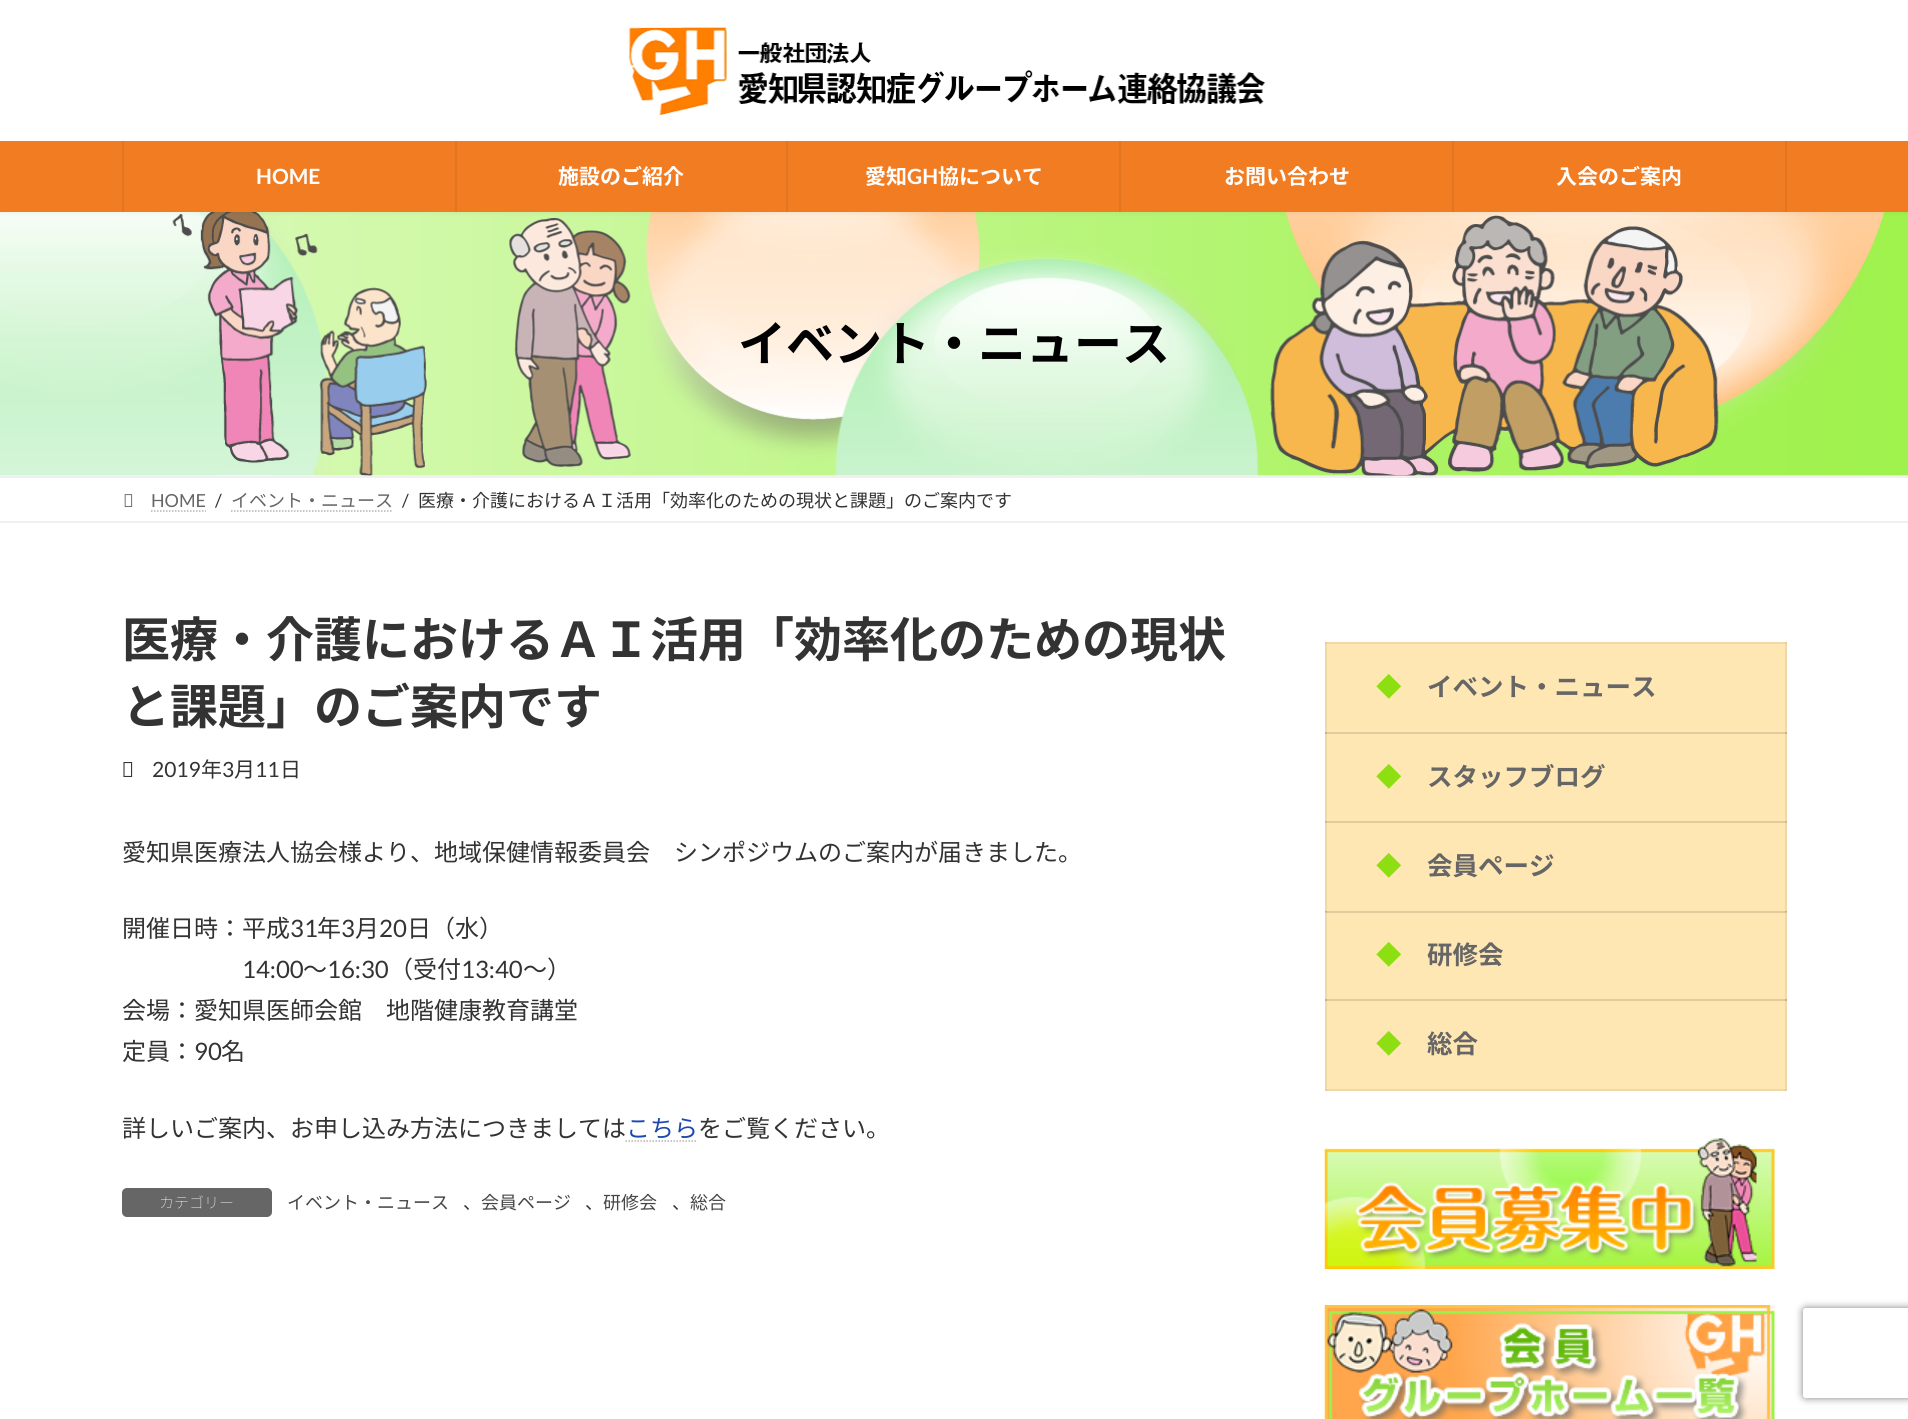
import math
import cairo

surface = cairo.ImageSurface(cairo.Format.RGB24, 1908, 1419)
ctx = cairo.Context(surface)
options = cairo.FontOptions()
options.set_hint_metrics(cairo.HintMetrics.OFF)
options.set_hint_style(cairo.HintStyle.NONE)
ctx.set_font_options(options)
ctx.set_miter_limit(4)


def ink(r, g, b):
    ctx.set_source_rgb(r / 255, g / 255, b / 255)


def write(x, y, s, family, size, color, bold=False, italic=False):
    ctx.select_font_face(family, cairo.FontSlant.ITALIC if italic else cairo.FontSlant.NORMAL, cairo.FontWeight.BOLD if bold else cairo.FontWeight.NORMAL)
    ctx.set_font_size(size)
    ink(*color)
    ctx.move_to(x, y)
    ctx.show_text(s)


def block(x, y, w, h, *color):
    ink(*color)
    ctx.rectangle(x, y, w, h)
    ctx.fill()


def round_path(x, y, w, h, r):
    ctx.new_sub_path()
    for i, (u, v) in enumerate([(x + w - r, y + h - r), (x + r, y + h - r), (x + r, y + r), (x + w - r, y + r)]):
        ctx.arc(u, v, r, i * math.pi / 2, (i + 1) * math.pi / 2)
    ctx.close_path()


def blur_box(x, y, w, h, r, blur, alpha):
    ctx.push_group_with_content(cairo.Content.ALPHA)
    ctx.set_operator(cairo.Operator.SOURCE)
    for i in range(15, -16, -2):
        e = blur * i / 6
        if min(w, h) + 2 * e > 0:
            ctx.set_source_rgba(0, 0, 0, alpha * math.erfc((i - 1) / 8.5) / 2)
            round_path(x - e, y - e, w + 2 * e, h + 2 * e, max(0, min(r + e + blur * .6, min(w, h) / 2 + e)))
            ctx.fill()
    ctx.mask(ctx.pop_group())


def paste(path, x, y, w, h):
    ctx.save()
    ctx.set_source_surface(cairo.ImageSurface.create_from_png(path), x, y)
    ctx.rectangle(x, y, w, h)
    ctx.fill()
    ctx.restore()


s1 = dict(family="Lato", size=21, color=(255, 255, 255), bold=True)
s2 = dict(family="Noto Sans JP", size=21, color=(255, 255, 255), bold=True)
s3 = dict(family="Noto Sans JP", size=48, color=(0, 0, 0), bold=True)
s4 = dict(family="Lato", size=18, color=(102, 102, 102))
s5 = dict(family="Lato", size=18, color=(51, 51, 51))
s6 = dict(family="Noto Sans JP", size=18, color=(102, 102, 102))
s7 = dict(family="Noto Sans JP", size=18, color=(51, 51, 51))
s8 = dict(family="Noto Sans JP", size=48, color=(51, 51, 51), bold=True)
s9 = dict(family="Lato", size=21, color=(51, 51, 51))
s10 = dict(family="Noto Sans JP", size=21, color=(51, 51, 51))
s11 = dict(family="Noto Sans JP", size=24, color=(51, 51, 51))
s12 = dict(family="Lato", size=24, color=(51, 51, 51))
s13 = dict(family="Noto Sans JP", size=24, color=(28, 72, 175))
s14 = dict(family="Noto Sans JP Thin", size=15, color=(255, 255, 255))
s15 = dict(family="Noto Sans JP", size=18, color=(70, 70, 70))
s16 = dict(family="Noto Sans JP", size=25.5, color=(141, 223, 17))
s17 = dict(family="Noto Sans JP", size=25.5, color=(102, 102, 102), bold=True)

ink(255, 255, 255)
ctx.paint()
paste("pic2.png", 0, 212, 1908, 264)
ink(0, 0, 0)
blur_box(0, 2, 1908, 211, 0, 2, 0.05)
block(0, 0, 1908, 141, 255, 255, 255)
paste("pic1.png", 628, 27, 638, 88)
block(0, 141, 1908, 71, 242, 124, 33)
block(455, 141, 2, 71, 227, 117, 31)
block(122, 141, 2, 71, 227, 117, 31)
write(256, 184, "HOME", **s1)
block(786, 141, 2, 71, 227, 117, 31)
write(558, 184, "施設のご紹介", **s2)
block(1119, 141, 2, 71, 227, 117, 31)
write(865, 184, "愛知", **s2)
write(907, 184, "GH", **s1)
write(938, 184, "協について", **s2)
block(1452, 141, 2, 71, 227, 117, 31)
write(1224, 184, "お問い合わせ", **s2)
block(1785, 141, 2, 71, 227, 117, 31)
write(1556, 184, "入会のご案内", **s2)
write(738, 361, "イベント・ニュース", **s3)
block(0, 476, 1908, 2, 240, 240, 240)
block(0, 521, 1908, 2, 240, 240, 240)
paste("pic3.png", 124, 494, 9, 13)
write(151, 507, "HOME", **s4)
ctx.new_path()
ctx.move_to(151, 511)
ctx.line_to(206, 511)
ink(179, 179, 179)
ctx.set_line_width(1.5)
ctx.set_dash([1.5, 1.5])
ctx.stroke()
write(215, 507, "/", **s5)
write(231, 507, "イベント・ニュース", **s6)
ctx.new_path()
ctx.move_to(231, 511)
ctx.line_to(393, 511)
ink(179, 179, 179)
ctx.stroke()
write(402, 507, "/", **s5)
write(418, 507, "医療・介護におけるＡＩ活用「効率化のための現状と課題」のご案内です", **s7)
write(122, 657, "医療・介護におけるＡＩ活用「効率化のための現状", **s8)
write(122, 724, "と課題」のご案内です", **s8)
paste("pic4.png", 123, 762, 10, 15)
write(152, 777, "2019", **s9)
write(201, 777, "年", **s10)
write(222, 777, "3", **s9)
write(234, 777, "月", **s10)
write(255, 777, "11", **s9)
write(280, 777, "日", **s10)
write(122, 861, "愛知県医療法人協会様より、地域保健情報委員会　シンポジウムのご案内が届きました。", **s11)
write(122, 937, "開催日時：平成", **s11)
write(290, 937, "31", **s12)
write(317, 937, "年", **s11)
write(341, 937, "3", **s12)
write(355, 937, "月", **s11)
write(379, 937, "20", **s12)
write(407, 937, "日（水）", **s11)
write(242, 978, "14:00", **s12)
write(303, 978, "～", **s11)
write(327, 978, "16:30", **s12)
write(389, 978, "（受付", **s11)
write(461, 978, "13:40", **s12)
write(523, 978, "～）", **s11)
write(122, 1019, "会場：愛知県医師会館　地階健康教育講堂", **s11)
write(122, 1060, "定員：", **s11)
write(194, 1060, "90", **s12)
write(221, 1060, "名", **s11)
write(122, 1137, "詳しいご案内、お申し込み方法につきましては", **s11)
write(626, 1137, "こちら", **s13)
ctx.new_path()
ctx.move_to(625.5, 1141)
ctx.line_to(697.5, 1141)
ink(179, 179, 179)
ctx.stroke()
write(698, 1137, "をご覧ください。", **s11)
ink(102, 102, 102)
round_path(122, 1188, 150, 29, 5)
ctx.fill()
write(159, 1208, "カテゴリー", **s14)
write(287, 1209, "イベント・ニュース", **s15)
write(463, 1209, "、", **s7)
write(481, 1209, "会員ページ", **s15)
write(585, 1209, "、", **s7)
write(603, 1209, "研修会", **s15)
write(672, 1209, "、", **s7)
write(690, 1209, "総合", **s15)
block(1327, 644, 458, 445, 255, 231, 179)
block(1325, 642, 2, 449, 240, 217, 168)
block(1785, 642, 2, 359, 240, 217, 168)
block(1325, 1089, 462, 2, 240, 217, 168)
block(1325, 1089, 2, 2, 226, 204, 158)
block(1785, 999, 2, 92, 240, 217, 168)
block(1785, 1089, 2, 2, 226, 204, 158)
block(1325, 642, 462, 2, 240, 217, 168)
block(1325, 642, 2, 2, 226, 204, 158)
block(1785, 642, 2, 2, 226, 204, 158)
write(1376, 696, "◆", **s16)
write(1427, 696, "イベント・ニュース", **s17)
block(1325, 732, 462, 2, 226, 204, 158)
block(1325, 732, 2, 2, 199, 180, 140)
block(1785, 732, 2, 2, 199, 180, 140)
write(1376, 786, "◆", **s16)
write(1427, 786, "スタッフブログ", **s17)
block(1325, 821, 462, 2, 226, 204, 158)
block(1325, 822, 2, 1, 212, 192, 149)
block(1325, 821, 2, 1, 199, 180, 140)
block(1785, 822, 2, 1, 212, 192, 149)
block(1785, 821, 2, 1, 199, 180, 140)
write(1376, 875, "◆", **s16)
write(1427, 875, "会員ページ", **s17)
block(1325, 911, 462, 2, 226, 204, 158)
block(1325, 912, 2, 1, 212, 192, 149)
block(1325, 911, 2, 1, 199, 180, 140)
block(1785, 912, 2, 1, 212, 192, 149)
block(1785, 911, 2, 1, 199, 180, 140)
write(1376, 964, "◆", **s16)
write(1427, 964, "研修会", **s17)
block(1325, 999, 462, 2, 226, 204, 158)
block(1325, 999, 2, 2, 199, 180, 140)
block(1785, 999, 2, 2, 199, 180, 140)
write(1376, 1053, "◆", **s16)
write(1427, 1053, "総合", **s17)
paste("pic5.png", 1324, 1138, 451, 131)
paste("pic6.png", 1324, 1305, 451, 114)
ctx.save()
ctx.set_fill_rule(cairo.FillRule.EVEN_ODD)
ctx.new_path()
ctx.move_to(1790, 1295)
ctx.line_to(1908, 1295)
ctx.line_to(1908, 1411)
ctx.line_to(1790, 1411)
ctx.close_path()
ctx.move_to(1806, 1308)
ctx.line_to(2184, 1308)
ctx.curve_to(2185.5, 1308, 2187, 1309.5, 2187, 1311)
ctx.line_to(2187, 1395)
ctx.curve_to(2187, 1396.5, 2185.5, 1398, 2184, 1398)
ctx.line_to(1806, 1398)
ctx.curve_to(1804.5, 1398, 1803, 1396.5, 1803, 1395)
ctx.line_to(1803, 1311)
ctx.curve_to(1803, 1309.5, 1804.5, 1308, 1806, 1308)
ctx.close_path()
ctx.clip()
ink(128, 128, 128)
blur_box(1803, 1308, 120, 90, 3, 4, 1)
ctx.restore()
surface.write_to_png("screenshot.png")
